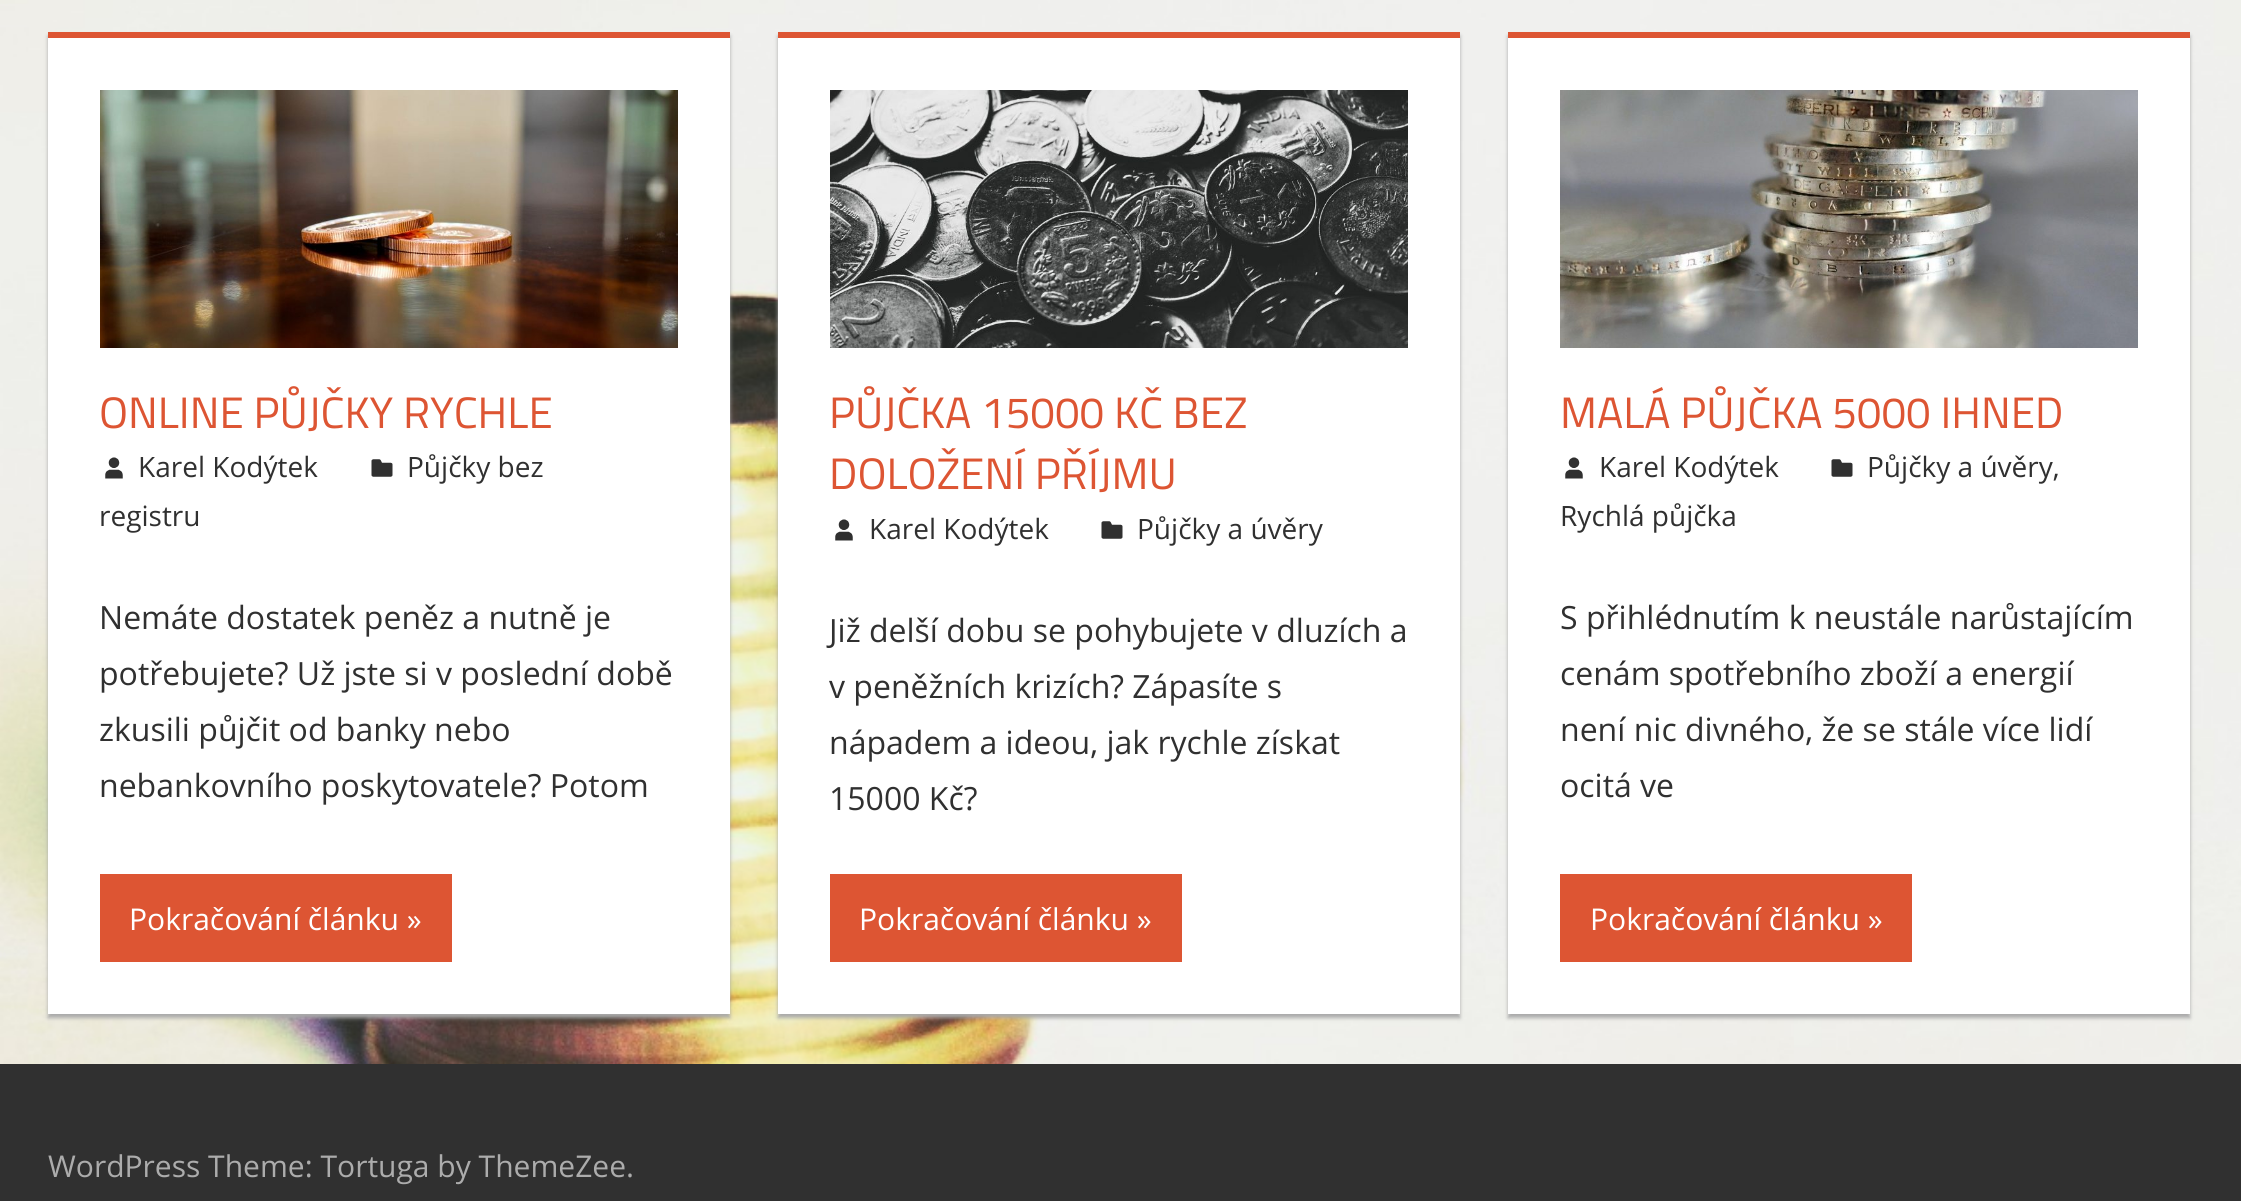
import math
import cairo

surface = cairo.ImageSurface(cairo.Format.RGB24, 2241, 1201)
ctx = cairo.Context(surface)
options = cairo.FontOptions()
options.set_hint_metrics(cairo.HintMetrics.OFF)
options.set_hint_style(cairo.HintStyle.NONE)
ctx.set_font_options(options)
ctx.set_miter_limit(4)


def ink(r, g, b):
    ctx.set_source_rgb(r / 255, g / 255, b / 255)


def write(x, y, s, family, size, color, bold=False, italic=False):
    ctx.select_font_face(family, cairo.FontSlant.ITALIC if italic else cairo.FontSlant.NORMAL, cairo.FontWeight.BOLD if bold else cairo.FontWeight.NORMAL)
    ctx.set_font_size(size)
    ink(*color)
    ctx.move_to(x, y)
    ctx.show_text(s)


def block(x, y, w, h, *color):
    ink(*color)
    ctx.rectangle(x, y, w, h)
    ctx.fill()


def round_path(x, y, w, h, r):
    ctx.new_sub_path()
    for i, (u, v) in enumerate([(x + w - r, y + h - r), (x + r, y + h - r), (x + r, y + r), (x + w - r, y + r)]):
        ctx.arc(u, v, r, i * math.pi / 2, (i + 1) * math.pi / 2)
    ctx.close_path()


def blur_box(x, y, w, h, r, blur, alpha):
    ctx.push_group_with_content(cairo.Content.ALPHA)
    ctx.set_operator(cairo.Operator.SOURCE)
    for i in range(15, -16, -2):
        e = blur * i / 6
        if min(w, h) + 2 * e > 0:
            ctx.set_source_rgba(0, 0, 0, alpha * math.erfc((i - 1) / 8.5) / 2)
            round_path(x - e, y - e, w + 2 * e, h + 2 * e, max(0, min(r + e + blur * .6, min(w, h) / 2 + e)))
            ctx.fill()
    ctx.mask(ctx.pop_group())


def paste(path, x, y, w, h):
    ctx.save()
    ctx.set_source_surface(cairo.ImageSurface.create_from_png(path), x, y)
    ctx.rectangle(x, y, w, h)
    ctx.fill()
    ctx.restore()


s1 = dict(family="Titillium Web", size=44, color=(221, 85, 51))
s2 = dict(family="Open Sans", size=28, color=(48, 48, 48))
s3 = dict(family="Open Sans", size=32, color=(48, 48, 48))
s4 = dict(family="Open Sans", size=30, color=(255, 255, 255))
s5 = dict(family="Open Sans", size=30, color=(172, 172, 172))

ink(255, 255, 255)
ctx.paint()
paste("pic1.png", 0, 0, 2241, 1064)
ink(170, 170, 170)
blur_box(48, 36, 682, 982, 0, 2, 1)
block(48, 38, 682, 976, 255, 255, 255)
block(48, 32, 682, 6, 221, 85, 51)
paste("pic2.png", 100, 90, 578, 258)
write(99, 428, "ONLINE PŮJČKY RYCHLE", **s1)
paste("pic3.png", 105, 457, 18, 22)
write(138, 477, "Karel Kodýtek", **s2)
paste("pic4.png", 371, 459, 22, 18)
write(407, 477, "Půjčky bez", **s2)
write(99, 526, "registru", **s2)
write(99, 629, "Nemáte dostatek peněz a nutně je", **s3)
write(99, 685, "potřebujete? Už jste si v poslední době", **s3)
write(99, 741, "zkusili půjčit od banky nebo", **s3)
write(99, 797, "nebankovního poskytovatele? Potom", **s3)
block(100, 874, 352, 88, 221, 85, 51)
write(129, 930, "Pokračování článku »", **s4)
ink(170, 170, 170)
blur_box(778, 36, 682, 982, 0, 2, 1)
block(778, 38, 682, 976, 255, 255, 255)
block(778, 32, 682, 6, 221, 85, 51)
paste("pic5.png", 830, 90, 578, 258)
write(829, 428, "PŮJČKA 15000 KČ BEZ", **s1)
write(829, 489, "DOLOŽENÍ PŘÍJMU", **s1)
paste("pic3.png", 835, 519, 18, 22)
write(869, 539, "Karel Kodýtek", **s2)
paste("pic4.png", 1101, 521, 22, 18)
write(1137, 539, "Půjčky a úvěry", **s2)
write(829, 642, "Již delší dobu se pohybujete v dluzích a", **s3)
write(829, 698, "v peněžních krizích? Zápasíte s", **s3)
write(829, 754, "nápadem a ideou, jak rychle získat", **s3)
write(829, 810, "15000 Kč?", **s3)
block(830, 874, 352, 88, 221, 85, 51)
write(859, 930, "Pokračování článku »", **s4)
ink(170, 170, 170)
blur_box(1508, 36, 682, 982, 0, 2, 1)
block(1508, 38, 682, 976, 255, 255, 255)
block(1508, 32, 682, 6, 221, 85, 51)
paste("pic6.png", 1560, 90, 578, 258)
write(1560, 428, "MALÁ PŮJČKA 5000 IHNED", **s1)
paste("pic3.png", 1565, 457, 18, 22)
write(1599, 477, "Karel Kodýtek", **s2)
paste("pic4.png", 1831, 459, 22, 18)
write(1867, 477, "Půjčky a úvěry,", **s2)
write(1560, 526, "Rychlá půjčka", **s2)
write(1560, 629, "S přihlédnutím k neustále narůstajícím", **s3)
write(1560, 685, "cenám spotřebního zboží a energií", **s3)
write(1560, 741, "není nic divného, že se stále více lidí", **s3)
write(1560, 797, "ocitá ve", **s3)
block(1560, 874, 352, 88, 221, 85, 51)
write(1590, 930, "Pokračování článku »", **s4)
block(0, 1064, 2241, 137, 48, 48, 48)
write(48, 1177, "WordPress Theme: Tortuga by ThemeZee.", **s5)
surface.write_to_png("screenshot.png")
